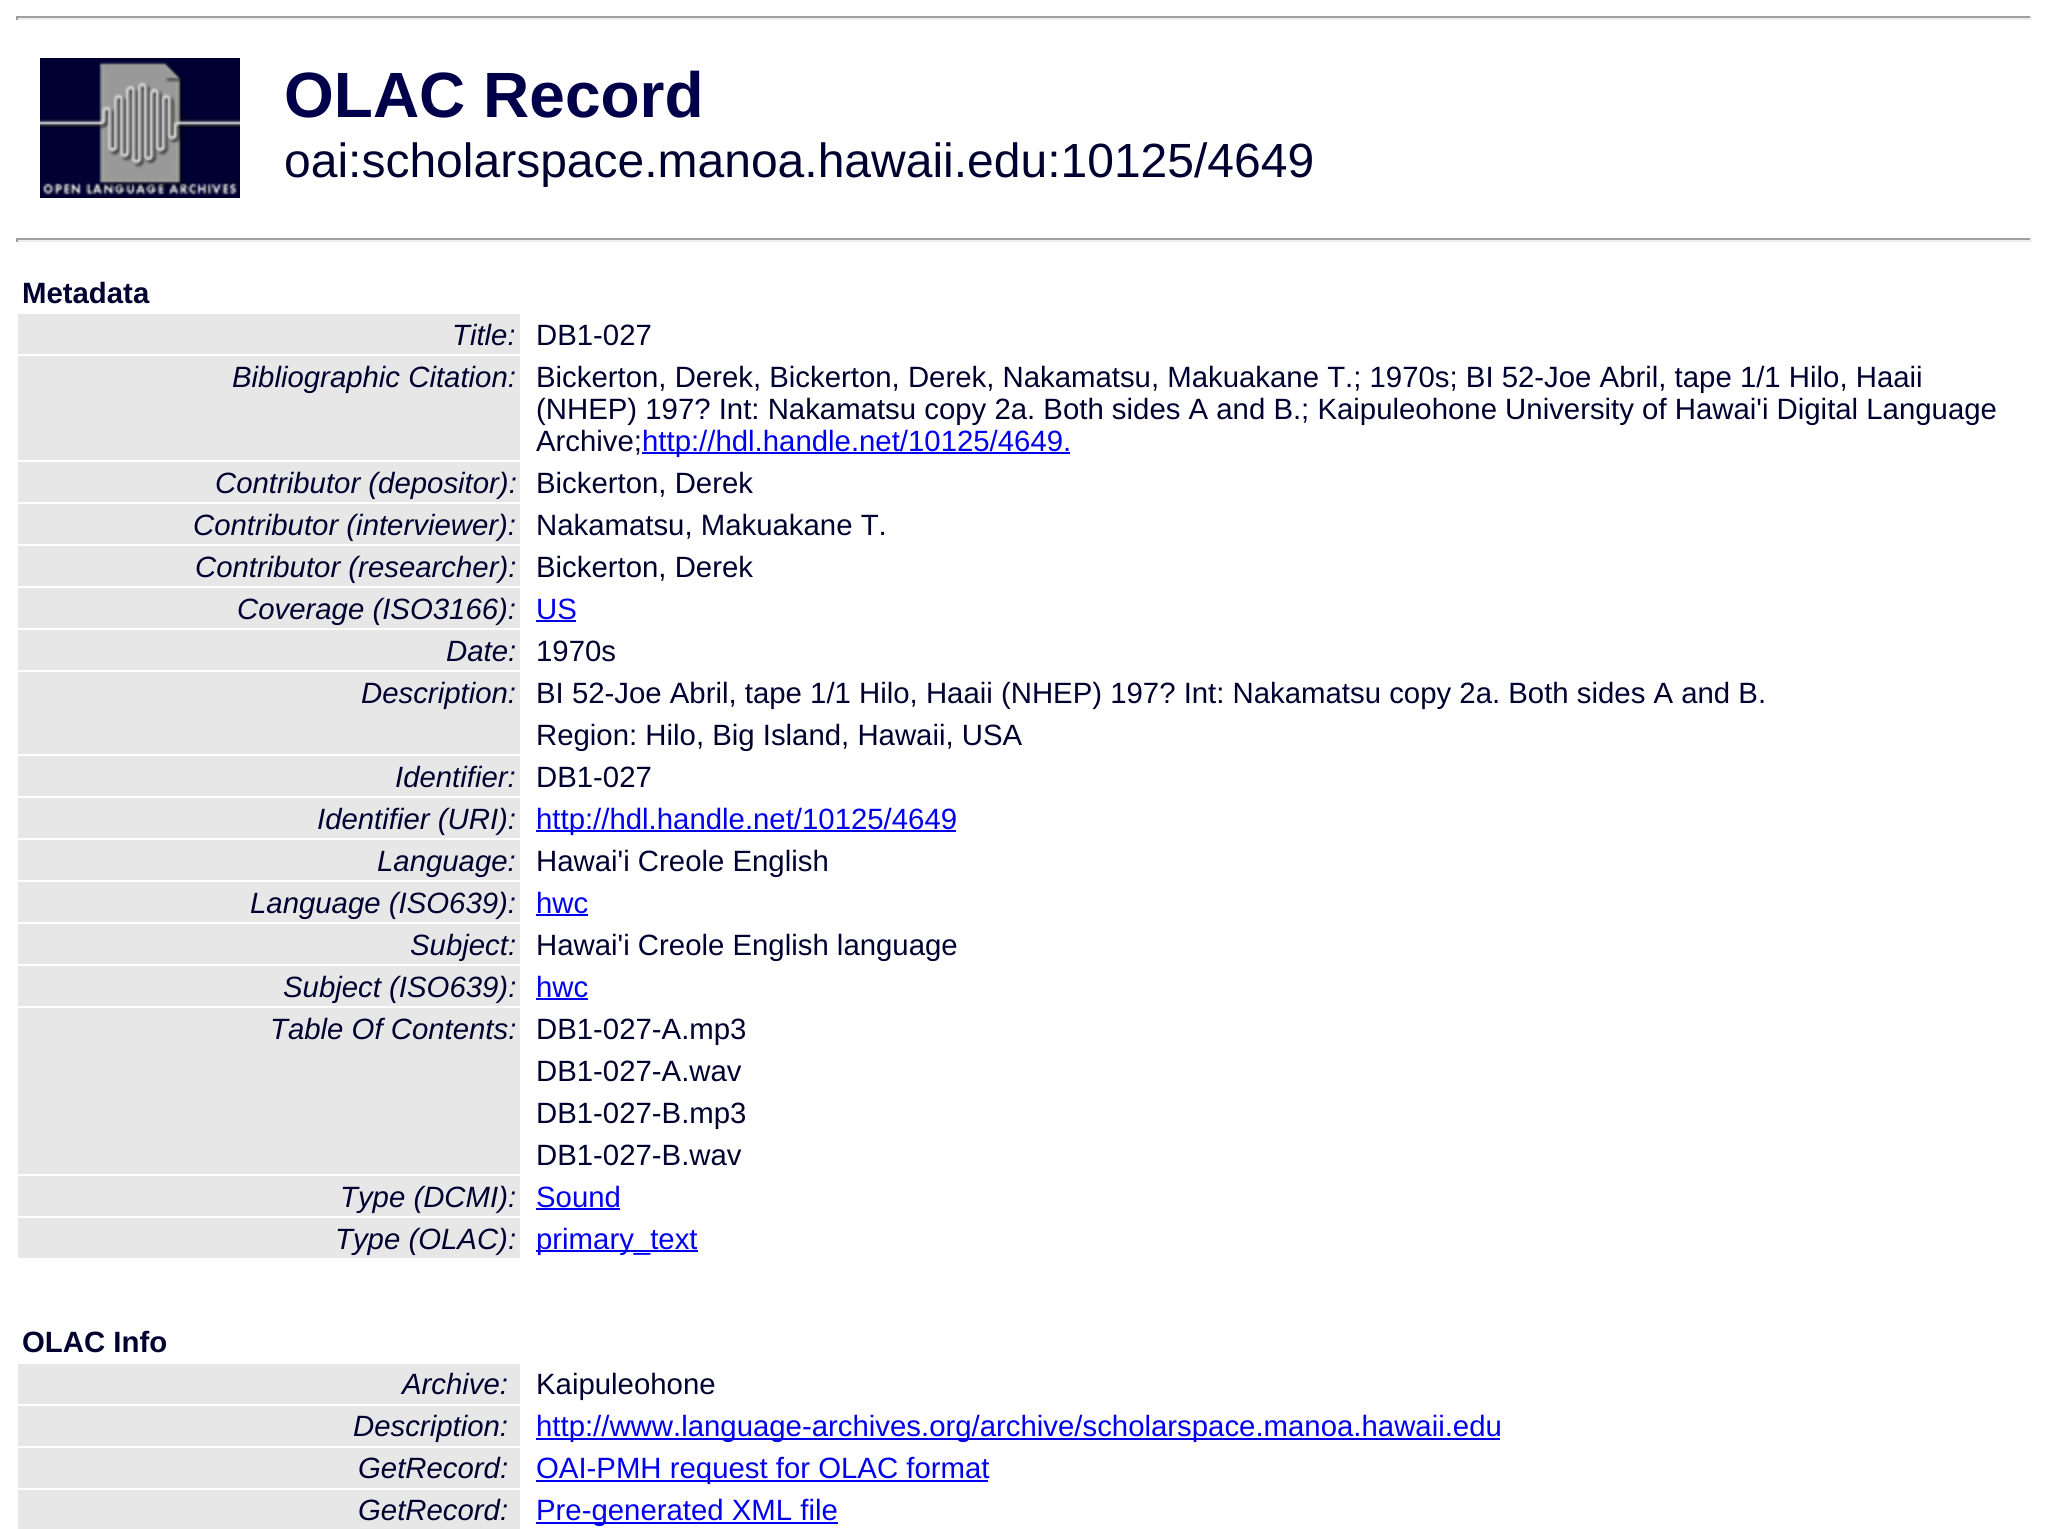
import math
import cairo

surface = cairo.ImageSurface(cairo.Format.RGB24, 2048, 1529)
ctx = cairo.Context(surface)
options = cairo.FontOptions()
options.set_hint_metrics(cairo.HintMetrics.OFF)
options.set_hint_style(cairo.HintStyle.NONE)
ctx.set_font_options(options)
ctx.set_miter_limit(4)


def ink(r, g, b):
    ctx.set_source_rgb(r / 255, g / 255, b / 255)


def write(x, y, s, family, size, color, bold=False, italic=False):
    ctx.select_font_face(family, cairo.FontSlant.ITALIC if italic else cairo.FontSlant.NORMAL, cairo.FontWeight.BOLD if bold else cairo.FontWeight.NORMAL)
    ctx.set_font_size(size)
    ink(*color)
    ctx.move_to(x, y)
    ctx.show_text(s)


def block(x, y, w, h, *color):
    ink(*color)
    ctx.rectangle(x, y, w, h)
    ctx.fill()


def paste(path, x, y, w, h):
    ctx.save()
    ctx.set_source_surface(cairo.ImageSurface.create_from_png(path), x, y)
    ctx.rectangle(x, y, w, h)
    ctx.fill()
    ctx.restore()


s1 = dict(family="Liberation Sans", size=64, color=(0, 0, 74), bold=True)
s2 = dict(family="Liberation Sans", size=48, color=(0, 0, 48))
s3 = dict(family="Liberation Sans", size=29.35, color=(0, 0, 48), bold=True)
s4 = dict(family="Liberation Sans", size=29.35, color=(0, 0, 48), italic=True)
s5 = dict(family="Liberation Sans", size=29.35, color=(0, 0, 48))
s6 = dict(family="Liberation Sans", size=29.35, color=(0, 0, 238))

ink(255, 255, 255)
ctx.paint()
block(16, 16, 2016, 2, 159, 159, 159)
block(2030, 16, 2, 4, 238, 238, 238)
block(16, 18, 2016, 2, 238, 238, 238)
block(16, 16, 2, 4, 159, 159, 159)
paste("pic1.png", 40, 58, 200, 140)
write(284, 117, "OLAC Record", **s1)
write(284, 177, "oai:scholarspace.manoa.hawaii.edu:10125/4649", **s2)
block(16, 238, 2016, 2, 159, 159, 159)
block(2030, 238, 2, 4, 238, 238, 238)
block(16, 240, 2016, 2, 238, 238, 238)
block(16, 238, 2, 4, 159, 159, 159)
write(22, 303, "Metadata", **s3)
block(18, 314, 502, 40, 231, 231, 231)
write(452, 345, "Title:", **s4)
write(536, 345, "DB1-027", **s5)
block(18, 356, 502, 104, 231, 231, 231)
write(232, 387, "Bibliographic Citation:", **s4)
write(536, 387, "Bickerton, Derek, Bickerton, Derek, Nakamatsu, Makuakane T.; 1970s; BI 52-Joe Abril, tape 1/1 Hilo, Haaii", **s5)
write(536, 419, "(NHEP) 197? Int: Nakamatsu copy 2a. Both sides A and B.; Kaipuleohone University of Hawai'i Digital Language", **s5)
write(536, 451, "Archive;", **s5)
block(642, 452, 428, 2, 0, 0, 238)
write(642, 451, "http://hdl.handle.net/10125/4649.", **s6)
block(18, 462, 502, 40, 231, 231, 231)
write(215, 493, "Contributor (depositor):", **s4)
write(536, 493, "Bickerton, Derek", **s5)
block(18, 504, 502, 40, 231, 231, 231)
write(193, 535, "Contributor (interviewer):", **s4)
write(536, 535, "Nakamatsu, Makuakane T.", **s5)
block(18, 546, 502, 40, 231, 231, 231)
write(195, 577, "Contributor (researcher):", **s4)
write(536, 577, "Bickerton, Derek", **s5)
block(18, 588, 502, 40, 231, 231, 231)
write(237, 619, "Coverage (ISO3166):", **s4)
write(536, 619, "US", **s6)
block(536, 620, 40, 2, 0, 0, 238)
block(18, 630, 502, 40, 231, 231, 231)
write(446, 661, "Date:", **s4)
write(536, 661, "1970s", **s5)
block(18, 672, 502, 82, 231, 231, 231)
write(361, 703, "Description:", **s4)
write(536, 703, "BI 52-Joe Abril, tape 1/1 Hilo, Haaii (NHEP) 197? Int: Nakamatsu copy 2a. Both sides A and B.", **s5)
write(536, 745, "Region: Hilo, Big Island, Hawaii, USA", **s5)
block(18, 756, 502, 40, 231, 231, 231)
write(395, 787, "Identifier:", **s4)
write(536, 787, "DB1-027", **s5)
block(18, 798, 502, 40, 231, 231, 231)
write(317, 829, "Identifier (URI):", **s4)
block(536, 830, 420, 2, 0, 0, 238)
write(536, 829, "http://hdl.handle.net/10125/4649", **s6)
block(18, 840, 502, 40, 231, 231, 231)
write(377, 871, "Language:", **s4)
write(536, 871, "Hawai'i Creole English", **s5)
block(18, 882, 502, 40, 231, 231, 231)
write(250, 913, "Language (ISO639):", **s4)
write(536, 913, "hwc", **s6)
block(536, 914, 52, 2, 0, 0, 238)
block(18, 924, 502, 40, 231, 231, 231)
write(410, 955, "Subject:", **s4)
write(536, 955, "Hawai'i Creole English language", **s5)
block(18, 966, 502, 40, 231, 231, 231)
write(283, 997, "Subject (ISO639):", **s4)
write(536, 997, "hwc", **s6)
block(536, 998, 52, 2, 0, 0, 238)
block(18, 1008, 502, 166, 231, 231, 231)
write(270, 1039, "Table Of Contents:", **s4)
write(536, 1039, "DB1-027-A.mp3", **s5)
write(536, 1081, "DB1-027-A.wav", **s5)
write(536, 1123, "DB1-027-B.mp3", **s5)
write(536, 1165, "DB1-027-B.wav", **s5)
block(18, 1176, 502, 40, 231, 231, 231)
write(340, 1207, "Type (DCMI):", **s4)
write(536, 1207, "Sound", **s6)
block(536, 1208, 84, 2, 0, 0, 238)
block(18, 1218, 502, 40, 231, 231, 231)
write(335, 1249, "Type (OLAC):", **s4)
block(536, 1250, 162, 2, 0, 0, 238)
write(536, 1249, "primary_text", **s6)
write(22, 1352, "OLAC Info", **s3)
block(18, 1364, 502, 40, 231, 231, 231)
write(402, 1394, "Archive:", **s4)
write(536, 1394, "Kaipuleohone", **s5)
block(18, 1406, 502, 40, 231, 231, 231)
write(353, 1436, "Description:", **s4)
block(536, 1438, 964, 2, 0, 0, 238)
write(536, 1436, "http://www.language-archives.org/archive/scholarspace.manoa.hawaii.edu", **s6)
block(18, 1448, 502, 40, 231, 231, 231)
write(358, 1478, "GetRecord:", **s4)
block(536, 1480, 452, 2, 0, 0, 238)
write(536, 1478, "OAI-PMH request for OLAC format", **s6)
block(18, 1490, 502, 39, 231, 231, 231)
write(358, 1520, "GetRecord:", **s4)
block(536, 1522, 302, 2, 0, 0, 238)
write(536, 1520, "Pre-generated XML file", **s6)
surface.write_to_png("screenshot.png")
